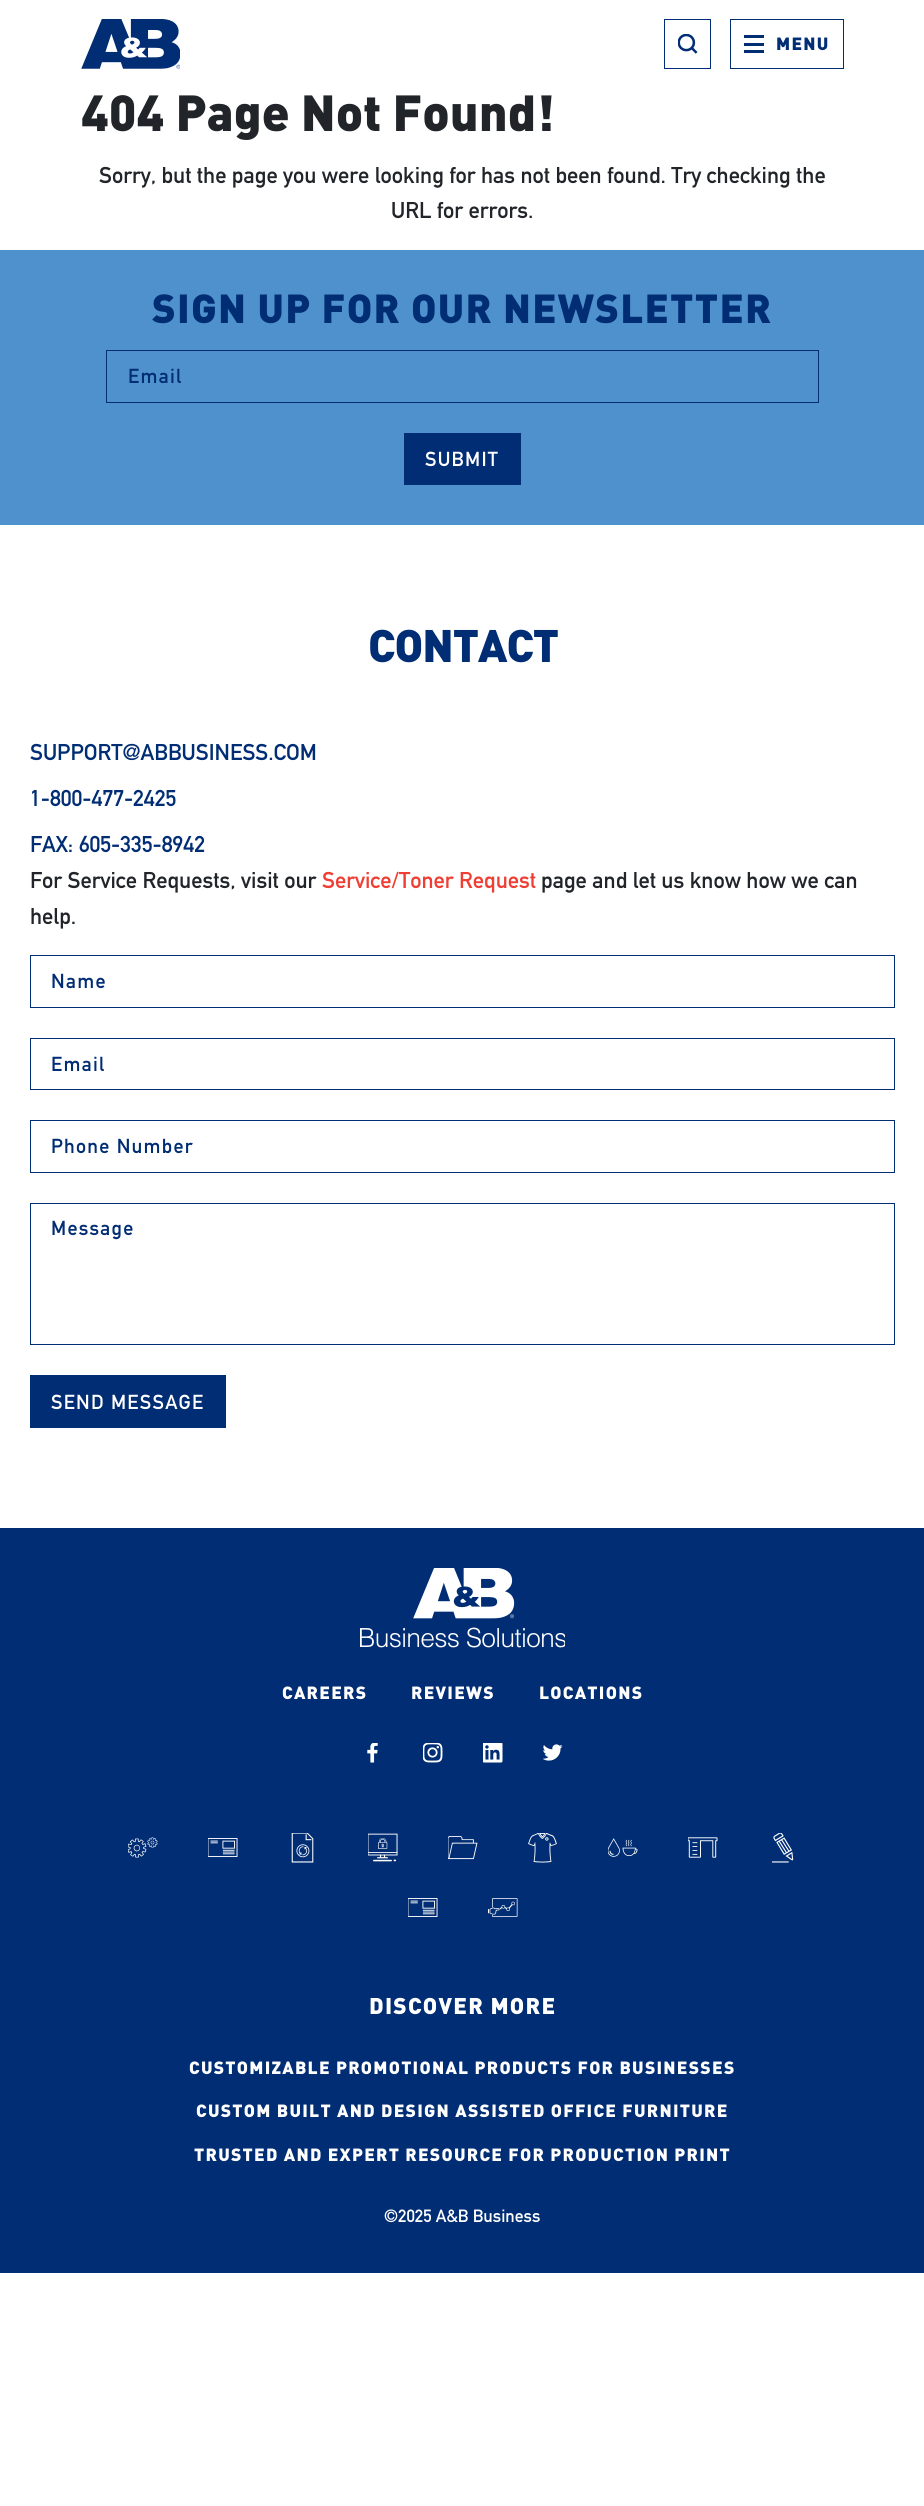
import math
import cairo

surface = cairo.ImageSurface(cairo.Format.RGB24, 924, 2506)
ctx = cairo.Context(surface)
options = cairo.FontOptions()
options.set_hint_metrics(cairo.HintMetrics.OFF)
options.set_hint_style(cairo.HintStyle.NONE)
ctx.set_font_options(options)
ctx.set_miter_limit(4)


def ink(r, g, b):
    ctx.set_source_rgb(r / 255, g / 255, b / 255)


def write(x, y, s, family, size, color, bold=False, italic=False):
    ctx.select_font_face(family, cairo.FontSlant.ITALIC if italic else cairo.FontSlant.NORMAL, cairo.FontWeight.BOLD if bold else cairo.FontWeight.NORMAL)
    ctx.set_font_size(size)
    ink(*color)
    ctx.move_to(x, y)
    ctx.show_text(s)


def write_spaced(x, y, s, letter, word):
    ctx.move_to(x, y)
    for ch in s:
        ctx.show_text(ch)
        ctx.rel_move_to(letter + word * (ch == ' '), 0)


def block(x, y, w, h, *color):
    ink(*color)
    ctx.rectangle(x, y, w, h)
    ctx.fill()


def paste(path, x, y, w, h):
    ctx.save()
    ctx.set_source_surface(cairo.ImageSurface.create_from_png(path), x, y)
    ctx.rectangle(x, y, w, h)
    ctx.fill()
    ctx.restore()


s1 = dict(family="DIN Black", size=50, color=(33, 37, 41))
s2 = dict(family="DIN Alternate", size=22.5, color=(33, 37, 41), bold=True)
s3 = dict(family="DIN Alternate", size=22.5, color=(0, 45, 116), bold=True)
s4 = dict(family="DIN Alternate", size=22.5, color=(239, 62, 51), bold=True)
s5 = dict(family="DIN Alternate", size=17.5, color=(255, 255, 255), bold=True)

ink(255, 255, 255)
ctx.paint()
paste("pic1.png", 81, 19, 99, 50)
ctx.rectangle(664.5, 19.5, 46, 49)
ink(0, 45, 116)
ctx.set_line_width(1)
ctx.stroke()
paste("pic2.png", 678, 34, 20, 20)
ctx.rectangle(730.5, 19.5, 113, 49)
ctx.stroke()
block(744, 35, 20, 3, 0, 45, 116)
block(744, 43, 20, 3, 0, 45, 116)
block(744, 50, 20, 3, 0, 45, 116)
ctx.select_font_face("DIN Black")
ctx.set_font_size(17.5)
write_spaced(776, 50, "MENU", 1.25, 0)
write(81, 131, "404 Page Not Found!", **s1)
write(99, 183, "Sorry, but the page you were looking for has not been found. Try checking the", **s2)
write(391, 218, "URL for errors.", **s2)
block(0, 250, 924, 275, 79, 145, 205)
ctx.select_font_face("DIN Black")
ctx.set_font_size(40)
ink(0, 45, 116)
write_spaced(152, 323, "SIGN UP FOR OUR NEWSLETTER", 1.25, 0)
ctx.rectangle(106.5, 350.5, 712, 52)
ctx.stroke()
ctx.select_font_face("DIN Alternate", cairo.FontSlant.NORMAL, cairo.FontWeight.BOLD)
ctx.set_font_size(20)
write_spaced(128, 383, "Email", 1.25, 0)
block(404, 433, 117, 52, 0, 45, 116)
ink(255, 255, 255)
write_spaced(425, 466, "SUBMIT", 1.25, 0)
ctx.select_font_face("DIN Black")
ctx.set_font_size(45)
ink(0, 45, 116)
write_spaced(368, 662, "CONTACT", -1, 0)
write(30, 760, "SUPPORT@ABBUSINESS.COM", **s3)
write(30, 806, "1-800-477-2425", **s3)
write(30, 852, "FAX: 605-335-8942", **s3)
write(30, 888, "For Service Requests, visit our", **s2)
write(322, 888, "Service/Toner Request", **s4)
write(541, 888, "page and let us know how we can", **s2)
write(30, 924, "help.", **s2)
ctx.rectangle(30.5, 955.5, 864, 52)
ink(0, 45, 116)
ctx.stroke()
ctx.set_font_size(20)
write_spaced(51, 988, "Name", 1.25, 0)
ctx.rectangle(30.5, 1038.5, 864, 51)
ctx.stroke()
write_spaced(51, 1071, "Email", 1.25, 0)
ctx.rectangle(30.5, 1120.5, 864, 52)
ctx.stroke()
write_spaced(51, 1153, "Phone Number", 1.25, 0)
ctx.rectangle(30.5, 1203.5, 864, 141)
ctx.stroke()
write_spaced(51, 1235, "Message", 1.25, 0)
block(30, 1375, 196, 53, 0, 45, 116)
ink(255, 255, 255)
write_spaced(51, 1409, "SEND MESSAGE", 1.25, 0)
block(0, 1528, 924, 745, 0, 45, 116)
paste("pic3.png", 360, 1568, 205, 80)
ctx.select_font_face("DIN Black")
ctx.set_font_size(17.5)
ink(255, 255, 255)
write_spaced(282, 1699, "CAREERS", 1.25, 0)
write_spaced(411, 1699, "REVIEWS", 1.25, 0)
write_spaced(539, 1699, "LOCATIONS", 1.25, 0)
paste("pic4.png", 367, 1743, 11, 20)
paste("pic5.png", 423, 1743, 20, 20)
paste("pic6.png", 483, 1743, 20, 20)
paste("pic7.png", 543, 1744, 20, 17)
paste("pic8.png", 128, 1837, 30, 21)
paste("pic9.png", 208, 1838, 30, 19)
paste("pic10.png", 291, 1833, 23, 30)
paste("pic11.png", 368, 1833, 30, 29)
paste("pic12.png", 448, 1836, 30, 24)
paste("pic13.png", 528, 1833, 29, 30)
paste("pic14.png", 608, 1838, 30, 19)
paste("pic15.png", 688, 1837, 30, 21)
paste("pic16.png", 771, 1833, 23, 30)
paste("pic9.png", 408, 1898, 30, 19)
paste("pic17.png", 488, 1898, 30, 19)
ctx.set_font_size(22.5)
write_spaced(369, 2014, "DISCOVER MORE", 1.25, 0)
ctx.set_font_size(17.5)
write_spaced(189, 2074, "CUSTOMIZABLE PROMOTIONAL PRODUCTS FOR BUSINESSES", 1.25, 0)
write_spaced(196, 2117, "CUSTOM BUILT AND DESIGN ASSISTED OFFICE FURNITURE", 1.25, 0)
write_spaced(194, 2161, "TRUSTED AND EXPERT RESOURCE FOR PRODUCTION PRINT", 1.25, 0)
write(384, 2222, "©2025 A&B Business", **s5)
surface.write_to_png("screenshot.png")
